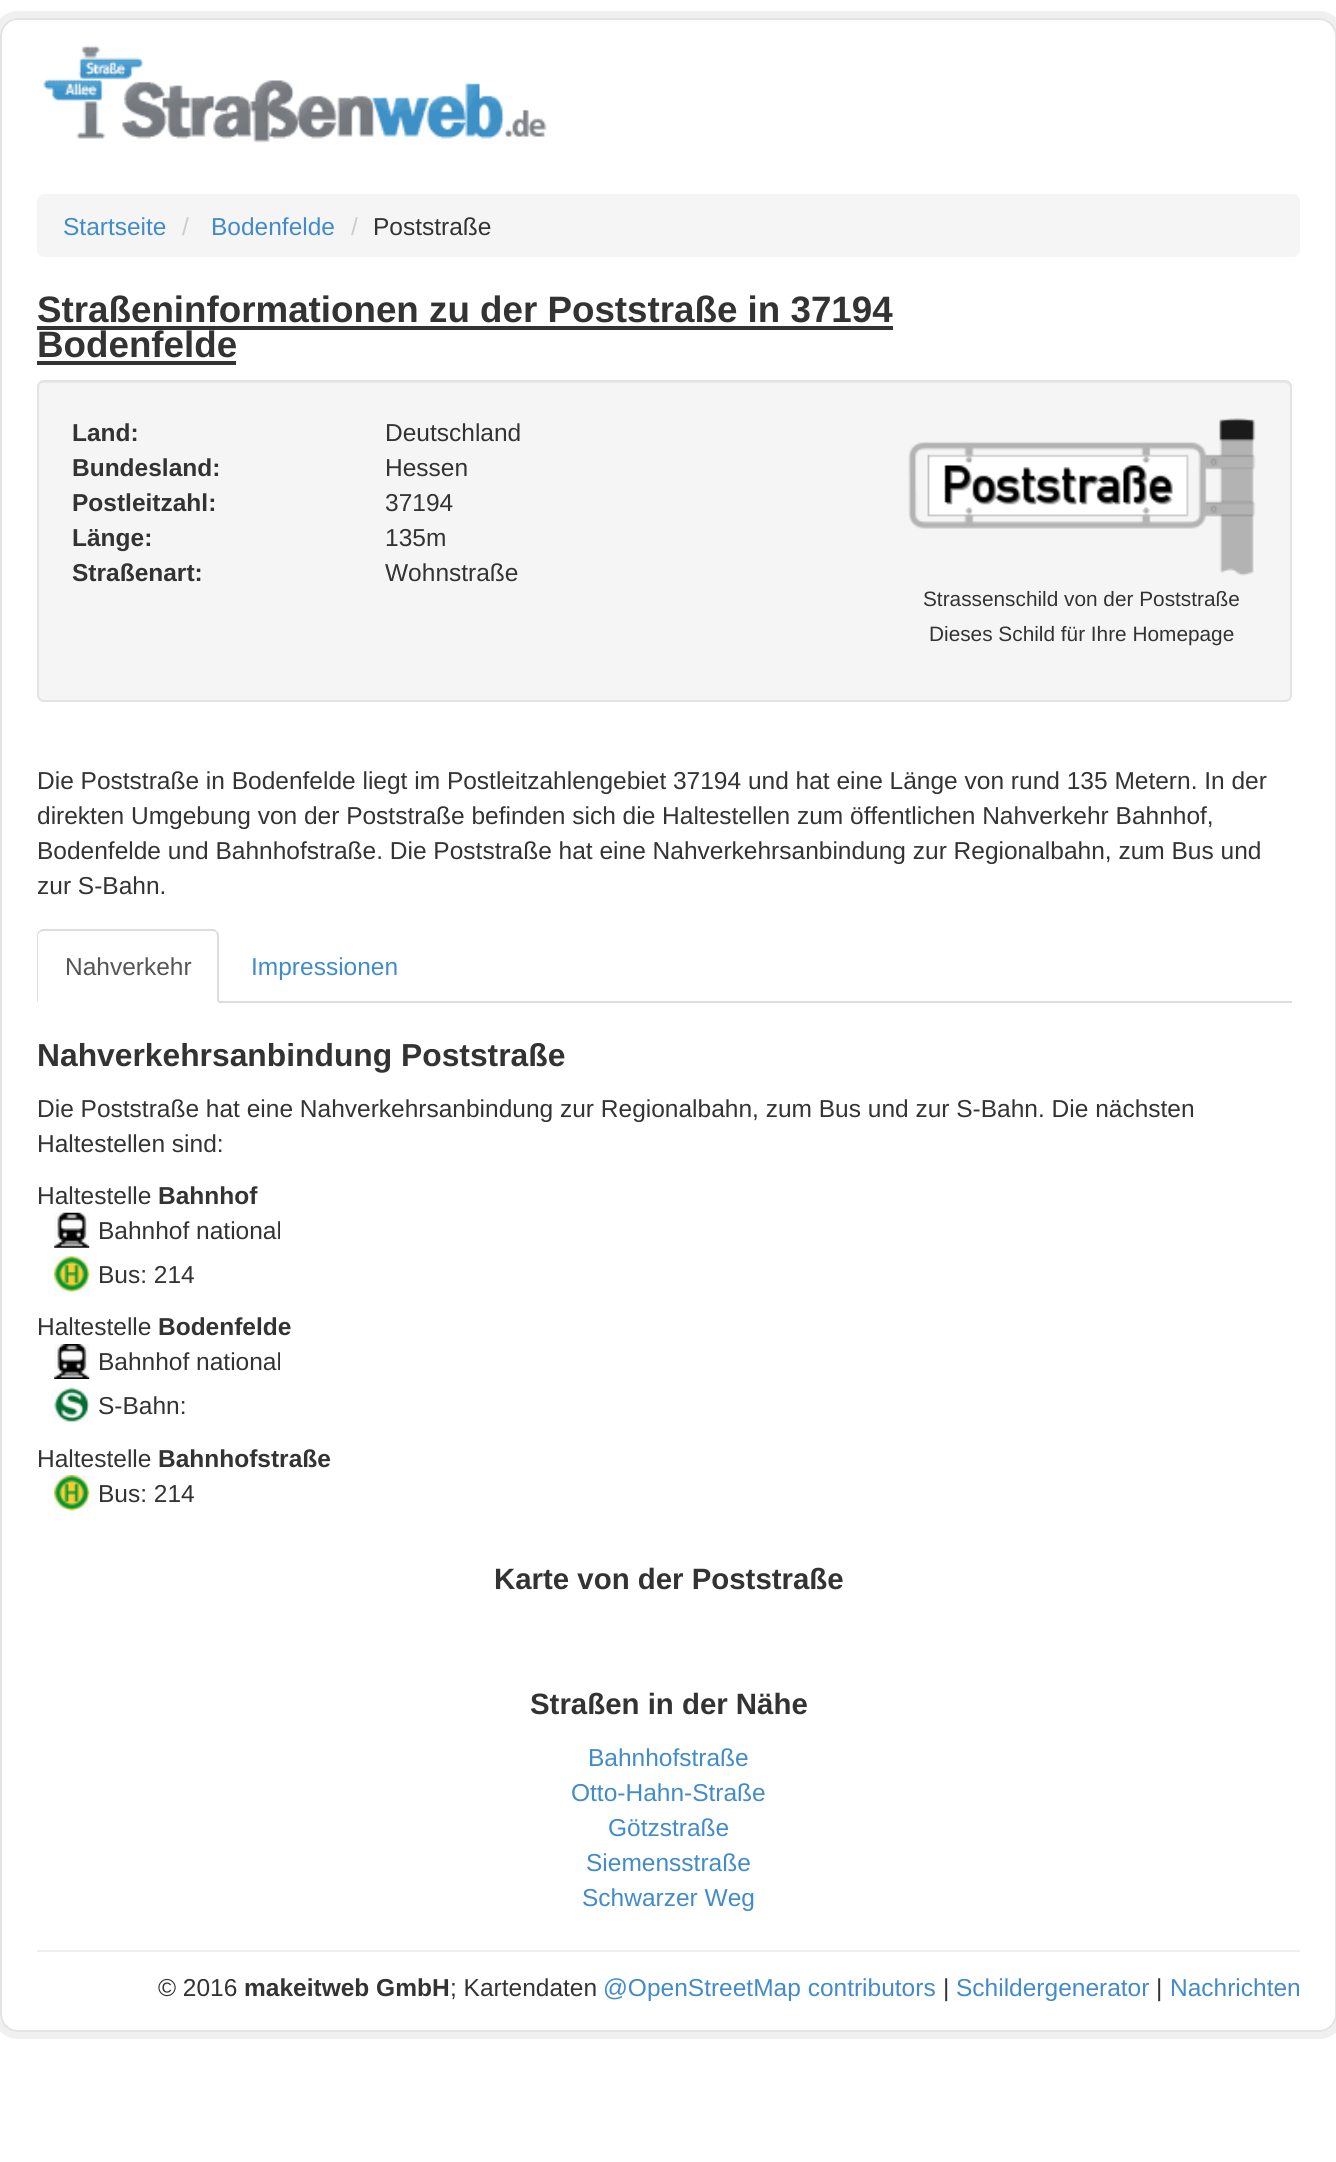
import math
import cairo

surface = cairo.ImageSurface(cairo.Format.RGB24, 1336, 2162)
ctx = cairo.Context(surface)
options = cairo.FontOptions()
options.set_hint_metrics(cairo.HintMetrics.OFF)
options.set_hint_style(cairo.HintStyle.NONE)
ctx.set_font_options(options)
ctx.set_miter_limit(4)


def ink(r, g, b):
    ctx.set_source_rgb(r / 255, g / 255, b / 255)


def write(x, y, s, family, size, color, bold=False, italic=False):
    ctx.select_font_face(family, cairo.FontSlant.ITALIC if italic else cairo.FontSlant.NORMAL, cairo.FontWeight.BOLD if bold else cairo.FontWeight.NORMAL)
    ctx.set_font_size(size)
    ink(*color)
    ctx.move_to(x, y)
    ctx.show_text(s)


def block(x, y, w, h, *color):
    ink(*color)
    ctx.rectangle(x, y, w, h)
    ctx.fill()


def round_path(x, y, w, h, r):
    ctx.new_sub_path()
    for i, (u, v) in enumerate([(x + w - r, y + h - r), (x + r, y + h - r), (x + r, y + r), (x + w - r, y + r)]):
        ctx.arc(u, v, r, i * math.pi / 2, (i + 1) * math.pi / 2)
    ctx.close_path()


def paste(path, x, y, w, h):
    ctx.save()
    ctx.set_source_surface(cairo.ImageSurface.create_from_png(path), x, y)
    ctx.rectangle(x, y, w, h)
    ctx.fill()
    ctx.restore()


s1 = dict(family="Liberation Sans", size=24.5, color=(66, 139, 202))
s2 = dict(family="Liberation Sans", size=24.5, color=(204, 204, 204))
s3 = dict(family="Liberation Sans", size=24.5, color=(51, 51, 51))
s4 = dict(family="Liberation Sans", size=36.75, color=(51, 51, 51), bold=True)
s5 = dict(family="Liberation Sans", size=24.5, color=(51, 51, 51), bold=True)
s6 = dict(family="Liberation Sans", size=20.8, color=(51, 51, 51))
s7 = dict(family="Liberation Sans", size=24.5, color=(85, 85, 85))
s8 = dict(family="Liberation Sans", size=31.8, color=(51, 51, 51), bold=True)
s9 = dict(family="Liberation Sans", size=29.4, color=(51, 51, 51), bold=True)

ink(255, 255, 255)
ctx.paint()
round_path(-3.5, 14.5, 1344, 2021, 21.5)
ink(240, 240, 240)
ctx.set_line_width(7)
ctx.stroke()
round_path(1, 19, 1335, 2012, 17)
ink(227, 227, 227)
ctx.set_line_width(2)
ctx.stroke()
paste("pic1.png", 43, 45, 504, 98)
ink(245, 245, 245)
round_path(37, 194, 1263, 63, 7)
ctx.fill()
write(63, 235, "Startseite", **s1)
write(182, 235, "/", **s2)
write(211, 235, "Bodenfelde", **s1)
write(351, 235, "/", **s2)
write(373, 235, "Poststraße", **s3)
write(37, 322, "Straßeninformationen zu der Poststraße in 37194", **s4)
write(37, 357, "Bodenfelde", **s4)
block(37, 326, 856, 4, 51, 51, 51)
block(37, 361, 199, 4, 51, 51, 51)
ink(245, 245, 245)
round_path(37, 380, 1255, 322, 7)
ctx.fill()
ink(233, 233, 233)
ctx.new_path()
ctx.move_to(44, 383)
ctx.line_to(1284, 383)
ctx.curve_to(1287, 383, 1290, 386, 1290, 388)
ctx.line_to(1290, 387)
ctx.curve_to(1290, 384, 1288, 382, 1285, 382)
ctx.line_to(44, 382)
ctx.curve_to(42, 382, 40, 383, 39, 385)
ctx.curve_to(40, 384, 42, 383, 44, 383)
ctx.close_path()
ctx.fill()
round_path(38, 381, 1253, 320, 6)
ink(227, 227, 227)
ctx.stroke()
write(72, 441, "Land:", **s5)
write(385, 441, "Deutschland", **s3)
write(72, 476, "Bundesland:", **s5)
write(385, 476, "Hessen", **s3)
write(72, 511, "Postleitzahl:", **s5)
write(385, 511, "37194", **s3)
write(72, 546, "Länge:", **s5)
write(385, 546, "135m", **s3)
write(72, 581, "Straßenart:", **s5)
write(385, 581, "Wohnstraße", **s3)
paste("pic2.png", 908, 418, 348, 158)
write(923, 606, "Strassenschild von der Poststraße", **s6)
write(929, 641, "Dieses Schild für Ihre Homepage", **s6)
write(37, 789, "Die Poststraße in Bodenfelde liegt im Postleitzahlengebiet 37194 und hat eine Länge von rund 135 Metern. In der", **s3)
write(37, 824, "direkten Umgebung von der Poststraße befinden sich die Haltestellen zum öffentlichen Nahverkehr Bahnhof,", **s3)
write(37, 859, "Bodenfelde und Bahnhofstraße. Die Poststraße hat eine Nahverkehrsanbindung zur Regionalbahn, zum Bus und", **s3)
write(37, 894, "zur S-Bahn.", **s3)
block(219, 1001, 1073, 2, 221, 221, 221)
ctx.new_path()
ctx.move_to(44, 931)
ctx.curve_to(42, 931, 41, 932, 40, 932)
ctx.line_to(39, 931)
ctx.line_to(42, 929)
ctx.line_to(214, 929)
ctx.line_to(217, 931)
ctx.line_to(216, 932)
ctx.curve_to(215, 932, 214, 931, 212, 931)
ctx.close_path()
ctx.fill()
ctx.new_path()
ctx.move_to(217, 931)
ctx.line_to(219, 934)
ctx.line_to(219, 1003)
ctx.line_to(217, 1001)
ctx.line_to(217, 936)
ctx.curve_to(217, 934, 216, 933, 216, 932)
ctx.close_path()
ctx.fill()
ctx.new_path()
ctx.move_to(37, 1002)
ctx.line_to(37, 936)
ctx.curve_to(37, 934, 38, 932, 39, 931)
ctx.line_to(40, 932)
ctx.line_to(38, 935)
ctx.line_to(38, 1001)
ctx.close_path()
ctx.fill()
write(65, 975, "Nahverkehr", **s7)
write(251, 975, "Impressionen", **s1)
write(37, 1066, "Nahverkehrsanbindung Poststraße", **s8)
write(37, 1117, "Die Poststraße hat eine Nahverkehrsanbindung zur Regionalbahn, zum Bus und zur S-Bahn. Die nächsten", **s3)
write(37, 1152, "Haltestellen sind:", **s3)
write(37, 1204, "Haltestelle", **s3)
write(158, 1204, "Bahnhof", **s5)
paste("pic3.png", 54, 1212, 36, 36)
write(98, 1239, "Bahnhof national", **s3)
paste("pic4.png", 54, 1256, 36, 36)
write(98, 1283, "Bus: 214", **s3)
write(37, 1335, "Haltestelle", **s3)
write(158, 1335, "Bodenfelde", **s5)
paste("pic5.png", 54, 1344, 36, 35)
write(98, 1370, "Bahnhof national", **s3)
paste("pic6.png", 54, 1387, 36, 36)
write(98, 1414, "S-Bahn:", **s3)
write(37, 1467, "Haltestelle", **s3)
write(158, 1467, "Bahnhofstraße", **s5)
paste("pic7.png", 54, 1475, 36, 36)
write(98, 1502, "Bus: 214", **s3)
write(494, 1589, "Karte von der Poststraße", **s9)
write(530, 1714, "Straßen in der Nähe", **s9)
write(588, 1766, "Bahnhofstraße", **s1)
write(571, 1801, "Otto-Hahn-Straße", **s1)
write(608, 1836, "Götzstraße", **s1)
write(586, 1871, "Siemensstraße", **s1)
write(582, 1906, "Schwarzer Weg", **s1)
block(37, 1950, 1263, 2, 238, 238, 238)
write(158, 1996, "© 2016", **s3)
write(244, 1996, "makeitweb GmbH", **s5)
write(450, 1996, "; Kartendaten", **s3)
write(603, 1996, "@OpenStreetMap contributors", **s1)
write(943, 1996, "|", **s3)
write(956, 1996, "Schildergenerator", **s1)
write(1156, 1996, "|", **s3)
write(1170, 1996, "Nachrichten", **s1)
surface.write_to_png("screenshot.png")
